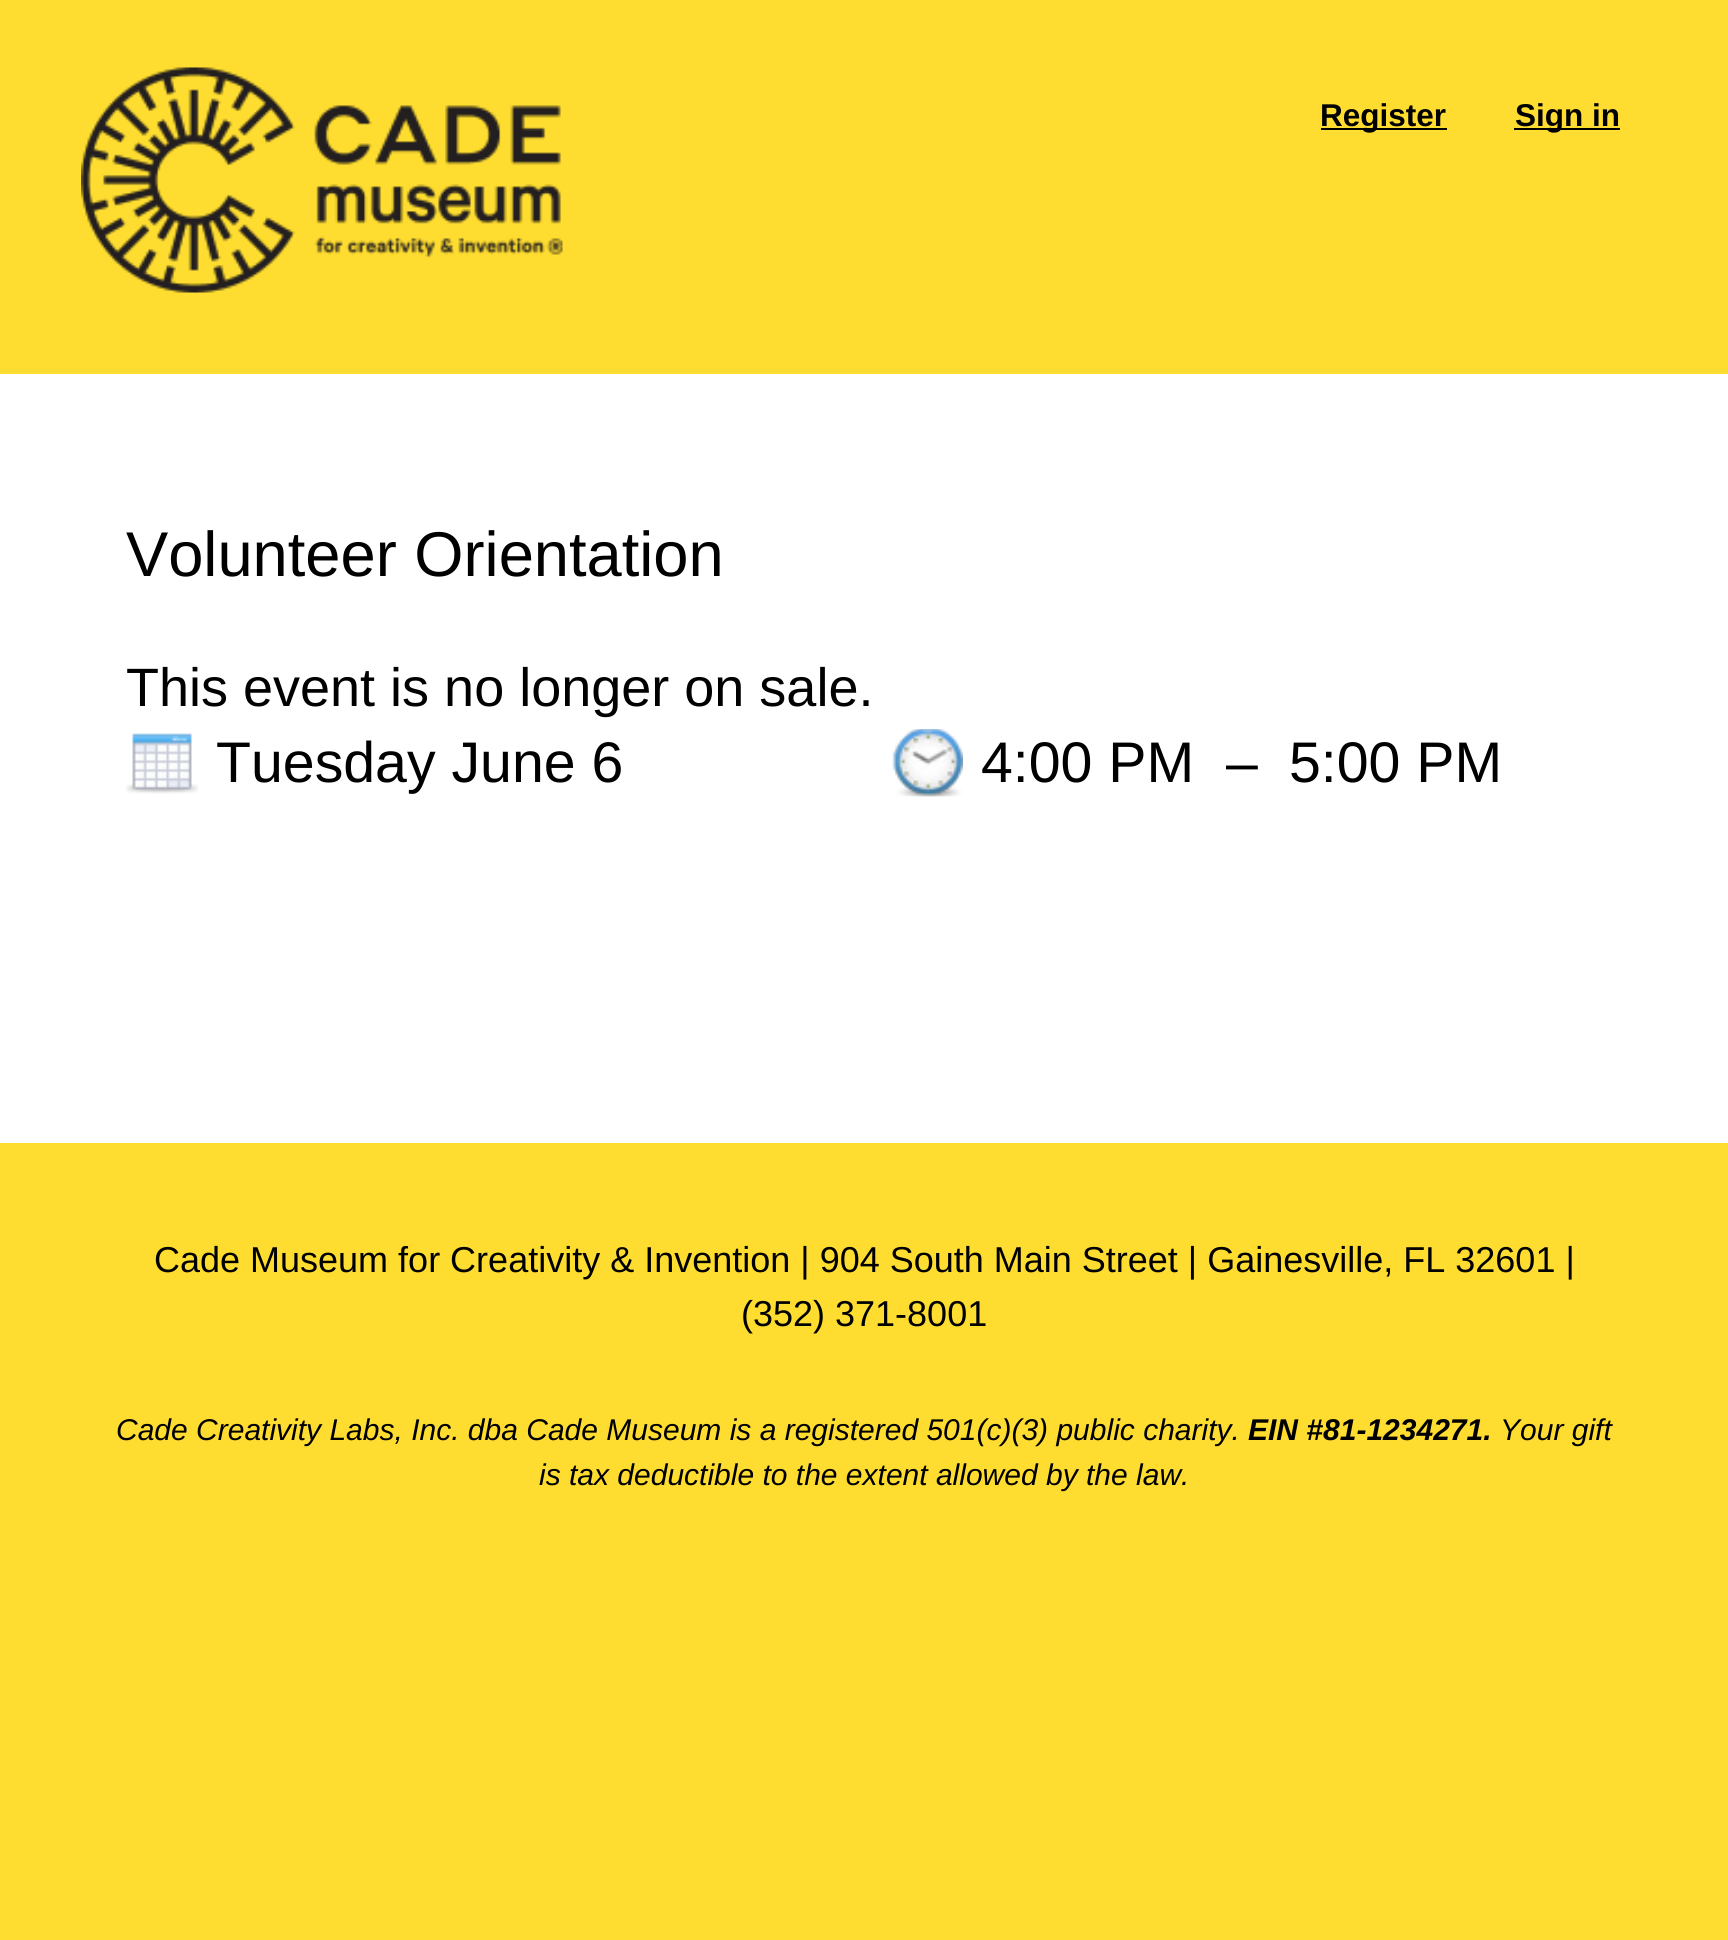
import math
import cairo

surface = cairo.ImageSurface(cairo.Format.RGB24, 1728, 1940)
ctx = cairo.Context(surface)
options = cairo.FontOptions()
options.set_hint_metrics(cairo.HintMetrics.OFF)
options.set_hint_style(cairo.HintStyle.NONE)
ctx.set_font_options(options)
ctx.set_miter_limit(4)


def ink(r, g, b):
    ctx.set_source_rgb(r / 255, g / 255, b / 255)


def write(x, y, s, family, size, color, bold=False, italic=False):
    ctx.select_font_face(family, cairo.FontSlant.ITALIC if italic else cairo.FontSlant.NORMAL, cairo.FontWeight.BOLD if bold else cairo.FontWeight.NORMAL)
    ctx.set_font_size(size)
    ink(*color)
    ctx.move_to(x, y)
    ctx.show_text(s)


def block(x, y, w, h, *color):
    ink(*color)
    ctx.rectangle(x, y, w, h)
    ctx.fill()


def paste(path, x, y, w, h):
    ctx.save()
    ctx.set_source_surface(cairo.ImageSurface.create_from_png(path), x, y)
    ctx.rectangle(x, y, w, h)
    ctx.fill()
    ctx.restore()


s1 = dict(family="Liberation Sans", size=31.5, color=(0, 0, 0), bold=True)
s2 = dict(family="Liberation Sans", size=63.25, color=(0, 0, 0))
s3 = dict(family="Liberation Sans", size=54, color=(0, 0, 0))
s4 = dict(family="Liberation Sans", size=57.25, color=(0, 0, 0))
s5 = dict(family="Liberation Sans", size=36, color=(0, 0, 0))
s6 = dict(family="Liberation Sans", size=30, color=(0, 0, 0), italic=True)
s7 = dict(family="Liberation Sans", size=30, color=(0, 0, 0), bold=True, italic=True)

ink(255, 221, 48)
ctx.paint()
paste("pic1.png", 81, 67, 482, 226)
block(1321, 128, 126, 2, 0, 0, 0)
write(1320, 126, "Register", **s1)
block(1514, 128, 106, 2, 0, 0, 0)
write(1515, 126, "Sign in", **s1)
block(0, 374, 1728, 769, 255, 255, 255)
write(126, 576, "Volunteer Orientation", **s2)
write(126, 706, "This event is no longer on sale.", **s3)
paste("pic2.png", 126, 733, 72, 61)
write(216, 782, "Tuesday June 6", **s4)
paste("pic3.png", 892, 729, 71, 68)
write(981, 782, "4:00 PM", **s4)
write(1226, 782, "–", **s4)
write(1289, 782, "5:00 PM", **s4)
write(154, 1272, "Cade Museum for Creativity & Invention | 904 South Main Street | Gainesville, FL 32601 |", **s5)
write(741, 1326, "(352) 371-8001", **s5)
write(116, 1440, "Cade Creativity Labs, Inc. dba Cade Museum is a registered 501(c)(3) public charity.", **s6)
write(1248, 1440, "EIN #81-1234271.", **s7)
write(1500, 1440, "Your gift", **s6)
write(539, 1485, "is tax deductible to the extent allowed by the law.", **s6)
surface.write_to_png("screenshot.png")
